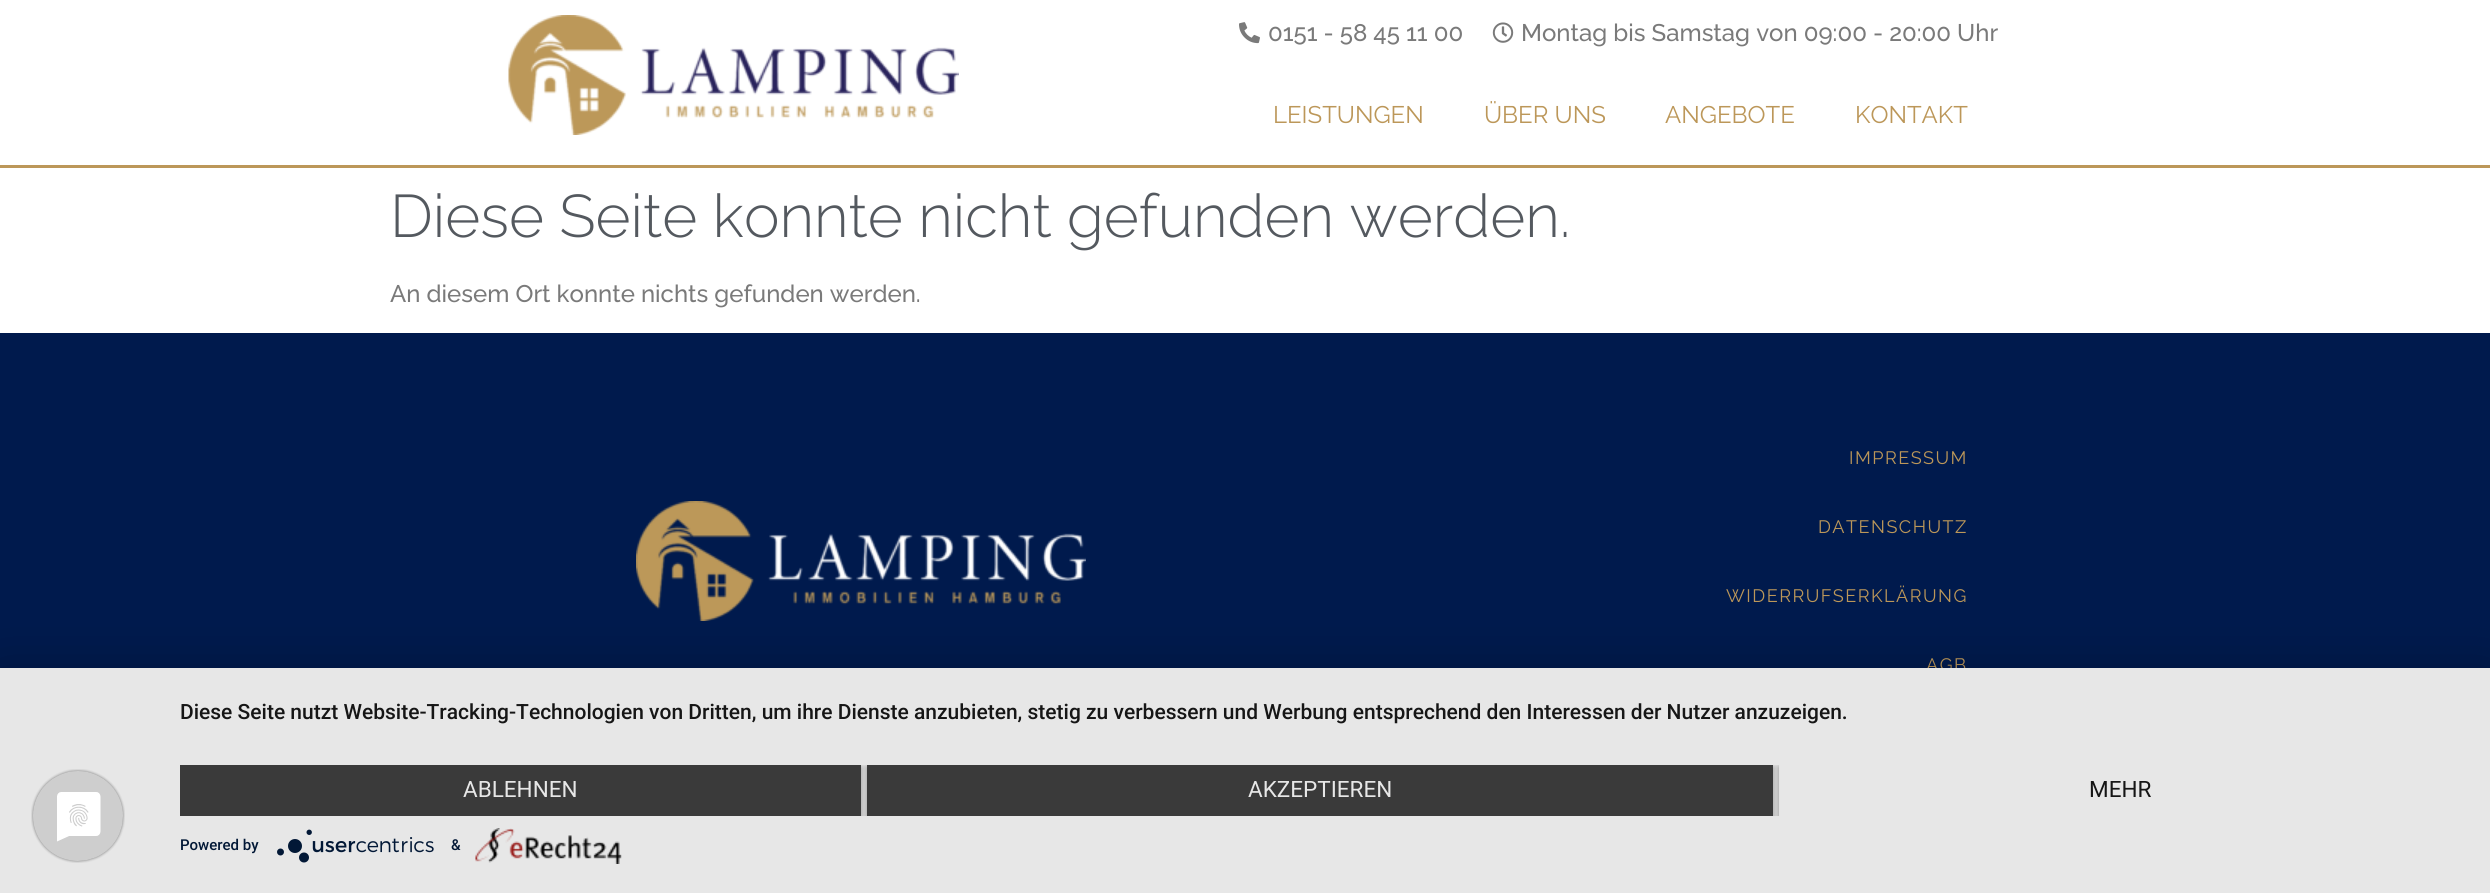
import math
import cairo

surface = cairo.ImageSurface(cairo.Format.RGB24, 2490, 893)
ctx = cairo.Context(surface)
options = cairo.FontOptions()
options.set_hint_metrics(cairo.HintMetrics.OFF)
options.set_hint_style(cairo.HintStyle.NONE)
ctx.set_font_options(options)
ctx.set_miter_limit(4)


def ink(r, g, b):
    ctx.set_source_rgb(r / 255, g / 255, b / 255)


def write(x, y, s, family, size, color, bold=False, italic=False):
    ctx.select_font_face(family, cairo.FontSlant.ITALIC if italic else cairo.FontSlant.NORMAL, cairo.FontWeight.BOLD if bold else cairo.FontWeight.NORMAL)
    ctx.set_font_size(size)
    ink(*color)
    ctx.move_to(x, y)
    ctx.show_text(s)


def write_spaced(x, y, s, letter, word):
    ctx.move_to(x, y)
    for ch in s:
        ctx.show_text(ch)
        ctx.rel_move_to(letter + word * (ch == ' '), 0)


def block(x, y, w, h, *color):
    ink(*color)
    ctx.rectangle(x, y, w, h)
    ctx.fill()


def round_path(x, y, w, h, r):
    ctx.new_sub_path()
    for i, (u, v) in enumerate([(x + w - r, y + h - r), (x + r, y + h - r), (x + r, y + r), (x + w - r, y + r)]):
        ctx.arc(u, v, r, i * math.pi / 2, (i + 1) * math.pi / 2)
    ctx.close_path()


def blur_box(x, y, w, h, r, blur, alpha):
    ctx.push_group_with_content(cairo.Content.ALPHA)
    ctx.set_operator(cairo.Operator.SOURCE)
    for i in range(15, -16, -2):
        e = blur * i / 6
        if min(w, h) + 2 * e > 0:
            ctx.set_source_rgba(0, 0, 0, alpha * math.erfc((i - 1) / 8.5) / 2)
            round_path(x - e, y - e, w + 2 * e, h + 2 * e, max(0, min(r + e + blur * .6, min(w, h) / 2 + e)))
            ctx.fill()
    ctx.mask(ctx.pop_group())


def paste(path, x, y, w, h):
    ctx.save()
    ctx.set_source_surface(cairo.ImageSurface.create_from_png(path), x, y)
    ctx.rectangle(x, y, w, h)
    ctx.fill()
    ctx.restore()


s1 = dict(family="Raleway Medium", size=24, color=(122, 122, 122))
s2 = dict(family="Raleway", size=24, color=(188, 151, 89))
s3 = dict(family="Raleway Light", size=60, color=(84, 89, 95))
s4 = dict(family="Roboto Medium", size=21, color=(22, 22, 22))
s5 = dict(family="Roboto", size=22.5, color=(231, 231, 231))
s6 = dict(family="Roboto", size=22.5, color=(22, 22, 22))
s7 = dict(family="Roboto Medium", size=15, color=(2, 24, 54))

ink(255, 255, 255)
ctx.paint()
block(0, 165, 2490, 3, 188, 151, 89)
paste("pic1.png", 508, 15, 451, 120)
paste("pic2.png", 1239, 22, 21, 22)
write(1268, 41, "0151 - 58 45 11 00", **s1)
paste("pic3.png", 1492, 22, 22, 21)
write(1521, 41, "Montag bis Samstag von 09:00 - 20:00 Uhr", **s1)
write(1273, 123, "LEISTUNGEN", **s2)
write(1484, 123, "ÜBER UNS", **s2)
write(1665, 123, "ANGEBOTE", **s2)
write(1855, 123, "KONTAKT", **s2)
write(390, 237, "Diese Seite konnte nicht gefunden werden.", **s3)
write(390, 302, "An diesem Ort konnte nichts gefunden werden.", **s1)
block(0, 333, 2490, 335, 0, 26, 77)
paste("pic4.png", 636, 501, 450, 120)
ctx.select_font_face("Raleway")
ctx.set_font_size(18)
ink(188, 151, 89)
write_spaced(1849, 464, "IMPRESSUM", 1.5, 0)
write_spaced(1818, 533, "DATENSCHUTZ", 1.5, 0)
write_spaced(1726, 602, "WIDERRUFSERKLÄRUNG", 1.5, 0)
write_spaced(1926, 671, "AGB", 1.5, 0)
ink(0, 0, 0)
blur_box(0, 677, 2490, 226, 0, 27, 0.3)
block(0, 668, 2490, 225, 231, 231, 231)
paste("pic5.png", 31, 769, 94, 94)
write(180, 719, "Diese Seite nutzt Website-Tracking-Technologien von Dritten, um ihre Dienste anzubieten, stetig zu verbessern und Werbung entsprechend den Interessen der Nutzer anzuzeigen.", **s4)
ctx.save()
ctx.rectangle(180, 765, 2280, 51)
ctx.clip()
ink(0, 0, 0)
blur_box(180, 767, 681, 51, 0, 3, 0.4)
ctx.restore()
block(180, 765, 681, 51, 58, 58, 58)
write(463, 797, "ABLEHNEN", **s5)
ctx.save()
ctx.rectangle(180, 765, 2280, 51)
ctx.clip()
ink(0, 0, 0)
blur_box(867, 767, 906, 51, 0, 3, 0.4)
ctx.restore()
block(867, 765, 906, 51, 58, 58, 58)
write(1248, 797, "AKZEPTIEREN", **s5)
ctx.save()
ctx.rectangle(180, 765, 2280, 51)
ctx.clip()
ctx.rectangle(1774, 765, 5, 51)
ctx.clip()
ink(0, 0, 0)
blur_box(1779, 767, 681, 51, 0, 3, 0.4)
ctx.restore()
write(2089, 797, "MEHR", **s6)
write(180, 850, "Powered by", **s7)
paste("pic6.png", 277, 829, 157, 34)
write(451, 850, "&", **s7)
paste("pic7.png", 475, 828, 147, 36)
surface.write_to_png("screenshot.png")
